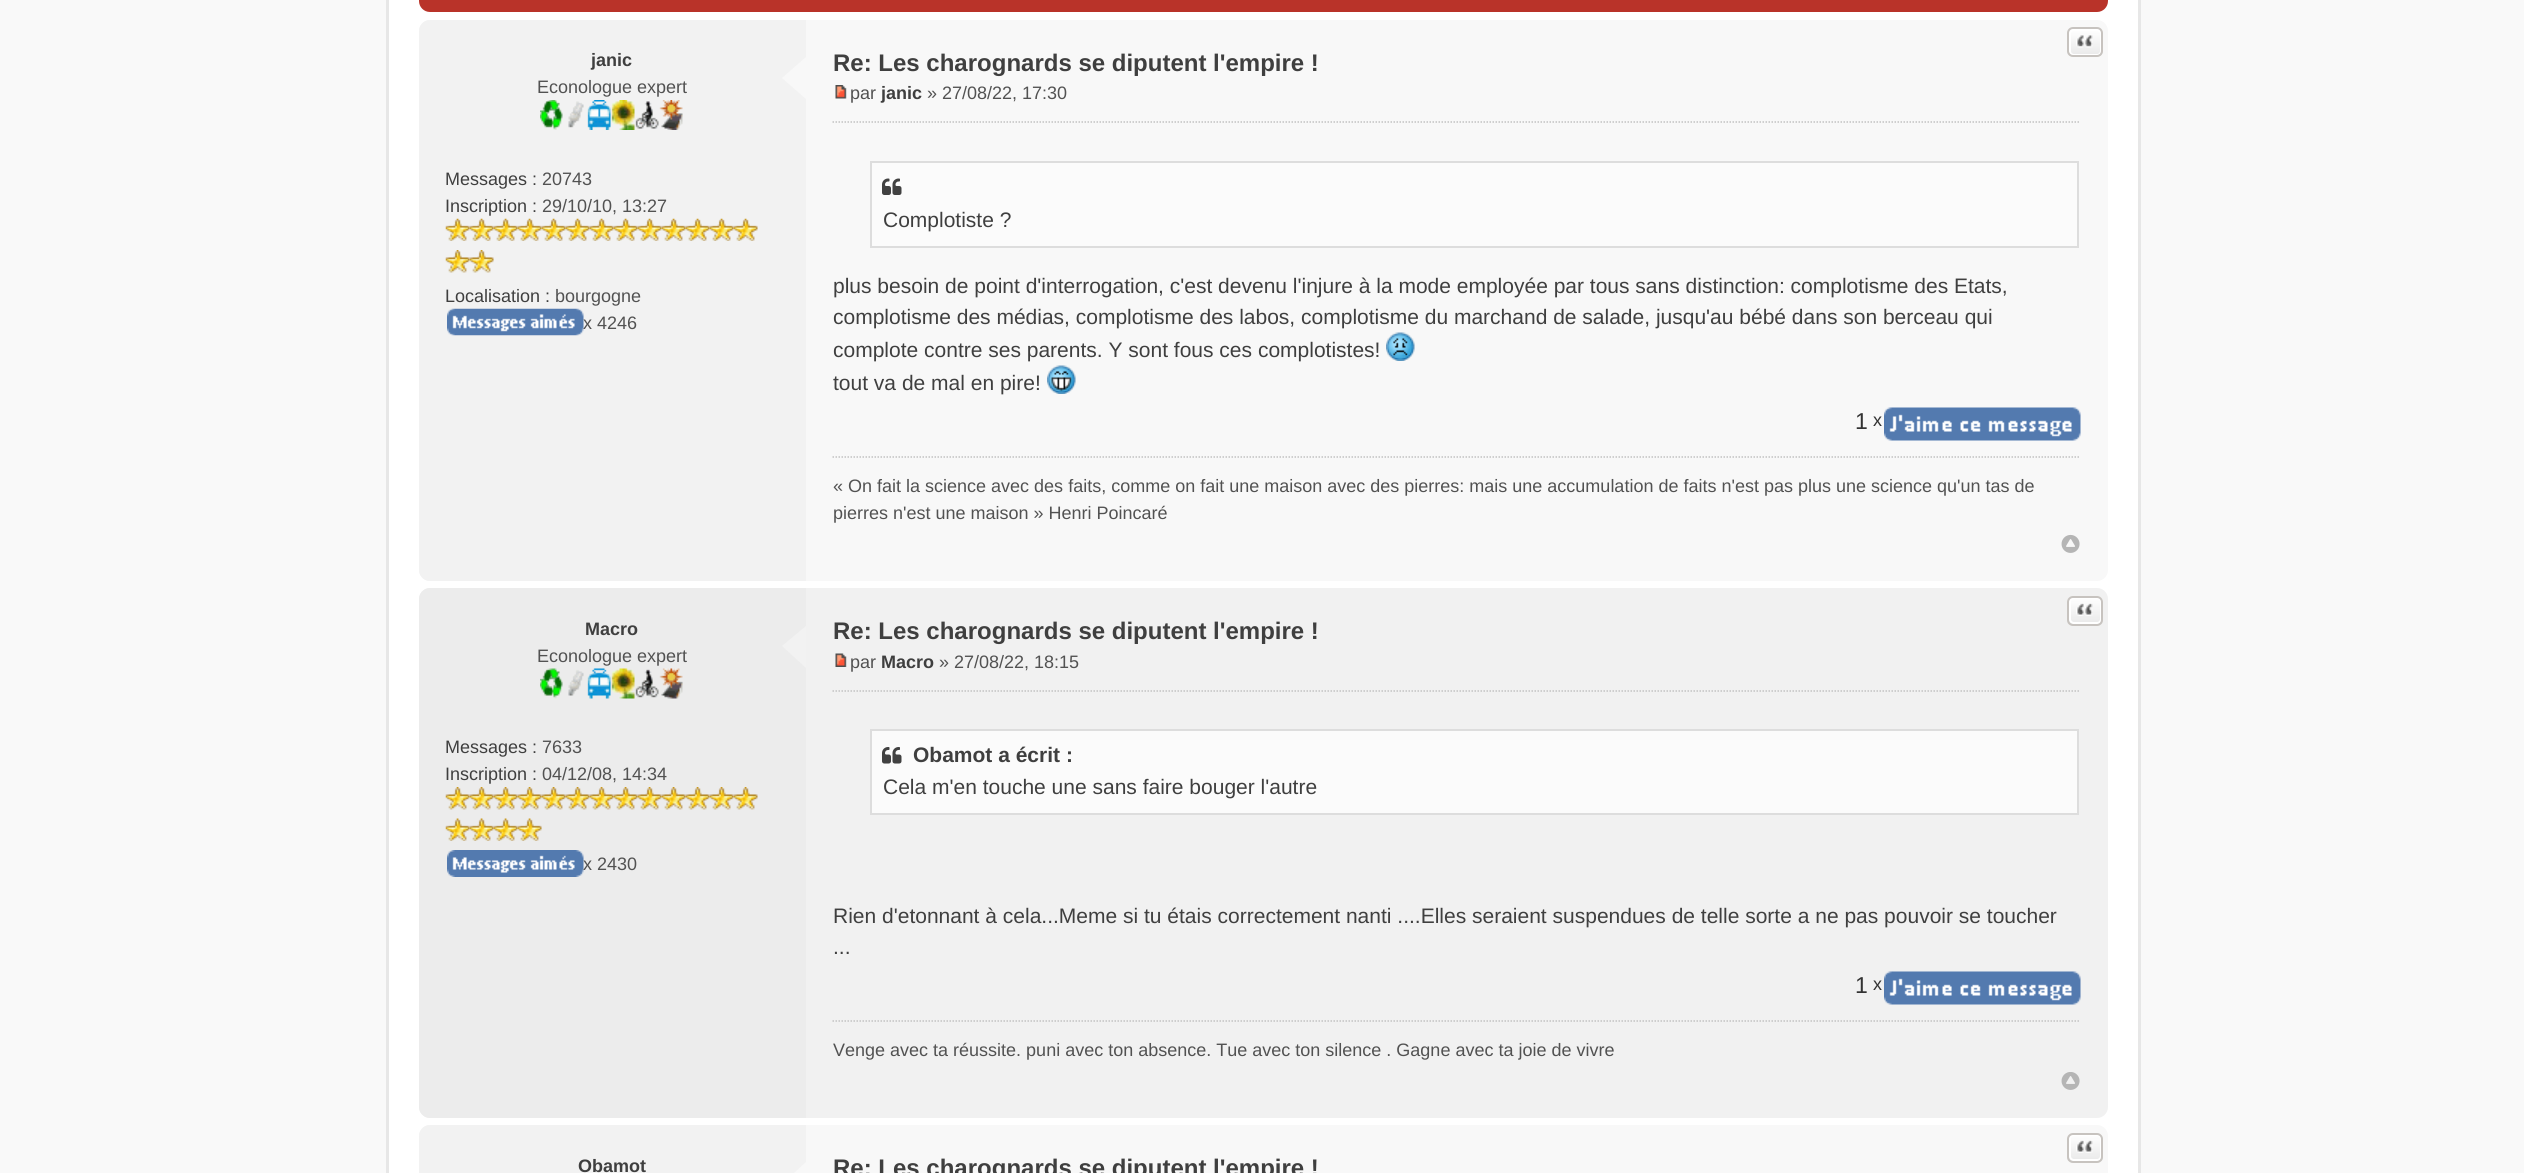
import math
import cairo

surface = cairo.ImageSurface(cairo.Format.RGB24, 2524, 1173)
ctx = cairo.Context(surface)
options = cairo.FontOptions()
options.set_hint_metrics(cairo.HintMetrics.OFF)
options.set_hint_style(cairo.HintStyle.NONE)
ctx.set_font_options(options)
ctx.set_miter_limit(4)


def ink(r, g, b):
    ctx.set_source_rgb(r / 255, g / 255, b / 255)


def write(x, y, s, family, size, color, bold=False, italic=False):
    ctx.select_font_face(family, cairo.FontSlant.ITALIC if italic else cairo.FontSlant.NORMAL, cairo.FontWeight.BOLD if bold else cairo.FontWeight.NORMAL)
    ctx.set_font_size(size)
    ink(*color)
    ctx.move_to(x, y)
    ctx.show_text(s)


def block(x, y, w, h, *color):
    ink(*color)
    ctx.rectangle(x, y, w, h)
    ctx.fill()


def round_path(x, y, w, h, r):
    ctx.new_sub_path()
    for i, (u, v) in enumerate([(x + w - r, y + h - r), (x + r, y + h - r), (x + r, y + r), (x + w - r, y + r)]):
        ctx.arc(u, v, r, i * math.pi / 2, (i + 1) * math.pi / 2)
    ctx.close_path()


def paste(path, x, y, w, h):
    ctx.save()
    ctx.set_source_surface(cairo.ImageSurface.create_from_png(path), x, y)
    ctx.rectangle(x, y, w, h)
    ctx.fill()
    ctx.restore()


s1 = dict(family="Liberation Sans", size=18, color=(63, 63, 63), bold=True)
s2 = dict(family="Liberation Sans", size=18, color=(82, 82, 82))
s3 = dict(family="Liberation Sans", size=18, color=(63, 63, 63))
s4 = dict(family="Liberation Sans", size=24, color=(63, 63, 63), bold=True)
s5 = dict(family="Liberation Sans", size=21, color=(63, 63, 63))
s6 = dict(family="Liberation Sans", size=23, color=(51, 51, 51))
s7 = dict(family="Liberation Sans", size=18, color=(51, 51, 51))
s8 = dict(family="Liberation Sans", size=21, color=(63, 63, 63), bold=True)

ink(249, 249, 249)
ctx.paint()
block(389, 0, 1749, 1173, 255, 255, 255)
block(2138, 0, 3, 1173, 231, 231, 231)
block(386, 0, 3, 1173, 231, 231, 231)
ink(185, 51, 41)
round_path(419, -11, 1689, 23, 11)
ctx.fill()
ink(248, 248, 248)
round_path(419, 20, 1689, 561, 11)
ctx.fill()
ink(242, 242, 242)
ctx.new_path()
ctx.move_to(430, 20)
ctx.line_to(806, 20)
ctx.line_to(806, 581)
ctx.line_to(430, 581)
ctx.curve_to(424, 581, 419, 576, 419, 570)
ctx.line_to(419, 31)
ctx.curve_to(419, 25, 424, 20, 430, 20)
ctx.close_path()
ctx.fill()
write(591, 66, "janic", **s1)
write(537, 93, "Econologue expert", **s2)
paste("pic1.png", 540, 100, 143, 30)
write(445, 185, "Messages :", **s3)
write(542, 185, "20743", **s2)
write(445, 212, "Inscription :", **s3)
write(542, 212, "29/10/10, 13:27", **s2)
paste("pic2.png", 445, 218, 25, 23)
paste("pic3.png", 469, 218, 25, 23)
paste("pic3.png", 493, 218, 25, 23)
paste("pic3.png", 517, 218, 25, 23)
paste("pic3.png", 541, 218, 25, 23)
paste("pic3.png", 565, 218, 25, 23)
paste("pic3.png", 589, 218, 25, 23)
paste("pic3.png", 613, 218, 25, 23)
paste("pic3.png", 637, 218, 25, 23)
paste("pic3.png", 661, 218, 25, 23)
paste("pic3.png", 685, 218, 25, 23)
paste("pic3.png", 709, 218, 25, 23)
paste("pic3.png", 733, 218, 25, 23)
paste("pic4.png", 445, 250, 25, 23)
paste("pic5.png", 469, 250, 25, 23)
write(445, 302, "Localisation :", **s3)
write(555, 302, "bourgogne", **s2)
paste("pic6.png", 447, 308, 137, 28)
write(583, 329, "x 4246", **s2)
ink(248, 248, 248)
ctx.new_path()
ctx.move_to(806, 57)
ctx.line_to(806, 99)
ctx.line_to(782, 78)
ctx.close_path()
ctx.fill()
ctx.save()
round_path(2067, 27, 36, 30, 6)
ctx.clip()
gradient = cairo.LinearGradient(2085, 29, 2085, 56)
gradient.add_color_stop_rgba(0, 1, 1, 1, 1)
gradient.add_color_stop_rgba(1, 0.914, 0.914, 0.914, 1)
ctx.set_source(gradient)
ctx.rectangle(2067, 29, 36, 27)
ctx.fill()
ctx.restore()
round_path(2070, 30, 31, 25, 4)
ink(255, 255, 255)
ctx.stroke()
round_path(2068, 28, 34, 28, 5)
ink(199, 195, 191)
ctx.stroke()
paste("pic7.png", 2076, 35, 17, 13)
write(833, 71, "Re: Les charognards se diputent l'empire !", **s4)
ctx.new_path()
ctx.move_to(832.5, 122)
ctx.line_to(2080.5, 122)
ink(194, 194, 194)
ctx.set_line_width(1.5)
ctx.set_dash([1.5, 1.5])
ctx.stroke()
paste("pic8.png", 835, 85, 12, 14)
write(850, 99, "par", **s2)
write(881, 99, "janic", **s1)
write(927, 99, "» 27/08/22, 17:30", **s2)
ink(251, 251, 251)
ctx.rectangle(871, 162, 1207, 85)
ctx.fill_preserve()
ink(221, 221, 221)
ctx.set_line_width(2)
ctx.set_dash([])
ctx.stroke()
paste("pic9.png", 882, 178, 20, 17)
write(883, 227, "Complotiste ?", **s5)
write(833, 293, "plus besoin de point d'interrogation, c'est devenu l'injure à la mode employée par tous sans distinction: complotisme des Etats,", **s5)
write(833, 324, "complotisme des médias, complotisme des labos, complotisme du marchand de salade, jusqu'au bébé dans son berceau qui", **s5)
write(833, 357, "complote contre ses parents. Y sont fous ces complotistes!", **s5)
paste("pic10.png", 1386, 332, 29, 29)
write(833, 390, "tout va de mal en pire!", **s5)
paste("pic11.png", 1047, 365, 29, 29)
write(1855, 429, "1", **s6)
write(1873, 426, "x", **s7)
paste("pic12.png", 1884, 407, 197, 34)
ctx.new_path()
ctx.move_to(832.5, 457)
ctx.line_to(2080.5, 457)
ink(194, 194, 194)
ctx.set_line_width(1.5)
ctx.set_dash([1.5, 1.5])
ctx.stroke()
write(833, 492, "« On fait la science avec des faits, comme on fait une maison avec des pierres: mais une accumulation de faits n'est pas plus une science qu'un tas de", **s2)
write(833, 519, "pierres n'est une maison » Henri Poincaré", **s2)
paste("pic13.png", 2061, 534, 19, 19)
ink(241, 241, 241)
round_path(419, 588, 1689, 530, 11)
ctx.fill()
ink(236, 236, 236)
ctx.new_path()
ctx.move_to(430, 588)
ctx.line_to(806, 588)
ctx.line_to(806, 1118)
ctx.line_to(430, 1118)
ctx.curve_to(424, 1118, 419, 1113, 419, 1107)
ctx.line_to(419, 599)
ctx.curve_to(419, 593, 424, 588, 430, 588)
ctx.close_path()
ctx.fill()
write(585, 635, "Macro", **s1)
write(537, 662, "Econologue expert", **s2)
paste("pic14.png", 540, 668, 143, 31)
write(445, 753, "Messages :", **s3)
write(542, 753, "7633", **s2)
write(445, 780, "Inscription :", **s3)
write(542, 780, "04/12/08, 14:34", **s2)
paste("pic15.png", 445, 787, 25, 23)
paste("pic16.png", 469, 787, 25, 23)
paste("pic16.png", 493, 787, 25, 23)
paste("pic16.png", 517, 787, 25, 23)
paste("pic16.png", 541, 787, 25, 23)
paste("pic16.png", 565, 787, 25, 23)
paste("pic16.png", 589, 787, 25, 23)
paste("pic16.png", 613, 787, 25, 23)
paste("pic16.png", 637, 787, 25, 23)
paste("pic16.png", 661, 787, 25, 23)
paste("pic16.png", 685, 787, 25, 23)
paste("pic16.png", 709, 787, 25, 23)
paste("pic16.png", 733, 787, 25, 23)
paste("pic17.png", 445, 818, 25, 23)
paste("pic18.png", 469, 818, 25, 23)
paste("pic18.png", 493, 818, 25, 23)
paste("pic18.png", 517, 818, 25, 23)
paste("pic19.png", 447, 850, 137, 27)
write(583, 870, "x 2430", **s2)
ink(242, 242, 242)
ctx.new_path()
ctx.move_to(806, 626)
ctx.line_to(806, 668)
ctx.line_to(782, 646)
ctx.close_path()
ctx.fill()
ctx.save()
round_path(2067, 596, 36, 30, 6)
ctx.clip()
gradient = cairo.LinearGradient(2085, 597, 2085, 624)
gradient.add_color_stop_rgba(0, 1, 1, 1, 1)
gradient.add_color_stop_rgba(1, 0.914, 0.914, 0.914, 1)
ctx.set_source(gradient)
ctx.rectangle(2067, 597, 36, 27)
ctx.fill()
ctx.restore()
round_path(2070, 598, 31, 25, 4)
ink(255, 255, 255)
ctx.set_line_width(2)
ctx.set_dash([])
ctx.stroke()
round_path(2068, 597, 34, 28, 5)
ink(199, 195, 191)
ctx.stroke()
paste("pic20.png", 2076, 603, 17, 13)
write(833, 639, "Re: Les charognards se diputent l'empire !", **s4)
ctx.new_path()
ctx.move_to(832.5, 691)
ctx.line_to(2080.5, 691)
ink(194, 194, 194)
ctx.set_line_width(1.5)
ctx.set_dash([1.5, 1.5])
ctx.stroke()
paste("pic21.png", 835, 653, 12, 14)
write(850, 668, "par", **s2)
write(881, 668, "Macro", **s1)
write(939, 668, "» 27/08/22, 18:15", **s2)
ink(251, 251, 251)
ctx.rectangle(871, 730, 1207, 84)
ctx.fill_preserve()
ink(221, 221, 221)
ctx.set_line_width(2)
ctx.set_dash([])
ctx.stroke()
write(913, 762, "Obamot a écrit :", **s8)
write(883, 794, "Cela m'en touche une sans faire bouger l'autre", **s5)
paste("pic22.png", 882, 747, 20, 17)
write(833, 923, "Rien d'etonnant à cela...Meme si tu étais correctement nanti ....Elles seraient suspendues de telle sorte a ne pas pouvoir se toucher", **s5)
write(833, 954, "...", **s5)
write(1855, 993, "1", **s6)
write(1873, 990, "x", **s7)
paste("pic23.png", 1884, 971, 197, 34)
ctx.new_path()
ctx.move_to(832.5, 1021)
ctx.line_to(2080.5, 1021)
ink(194, 194, 194)
ctx.set_line_width(1.5)
ctx.set_dash([1.5, 1.5])
ctx.stroke()
write(833, 1056, "Venge avec ta réussite. puni avec ton absence. Tue avec ton silence . Gagne avec ta joie de vivre", **s2)
paste("pic24.png", 2061, 1072, 19, 18)
ink(248, 248, 248)
round_path(419, 1125, 1689, 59, 11)
ctx.fill()
ink(242, 242, 242)
ctx.new_path()
ctx.move_to(430, 1125)
ctx.line_to(806, 1125)
ctx.line_to(806, 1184)
ctx.line_to(430, 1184)
ctx.curve_to(424, 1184, 419, 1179, 419, 1173)
ctx.line_to(419, 1136)
ctx.curve_to(419, 1130, 424, 1125, 430, 1125)
ctx.close_path()
ctx.fill()
write(578, 1172, "Obamot", **s1)
ink(248, 248, 248)
ctx.new_path()
ctx.move_to(806, 1162)
ctx.line_to(806, 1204)
ctx.line_to(782, 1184)
ctx.close_path()
ctx.fill()
ctx.save()
round_path(2067, 1133, 36, 30, 6)
ctx.clip()
gradient = cairo.LinearGradient(2085, 1134, 2085, 1161)
gradient.add_color_stop_rgba(0, 1, 1, 1, 1)
gradient.add_color_stop_rgba(1, 0.914, 0.914, 0.914, 1)
ctx.set_source(gradient)
ctx.rectangle(2067, 1134, 36, 27)
ctx.fill()
ctx.restore()
round_path(2070, 1135, 31, 25, 4)
ink(255, 255, 255)
ctx.set_line_width(2)
ctx.set_dash([])
ctx.stroke()
round_path(2068, 1134, 34, 28, 5)
ink(199, 195, 191)
ctx.stroke()
paste("pic20.png", 2076, 1140, 17, 13)
write(833, 1176, "Re: Les charognards se diputent l'empire !", **s4)
surface.write_to_png("screenshot.png")
